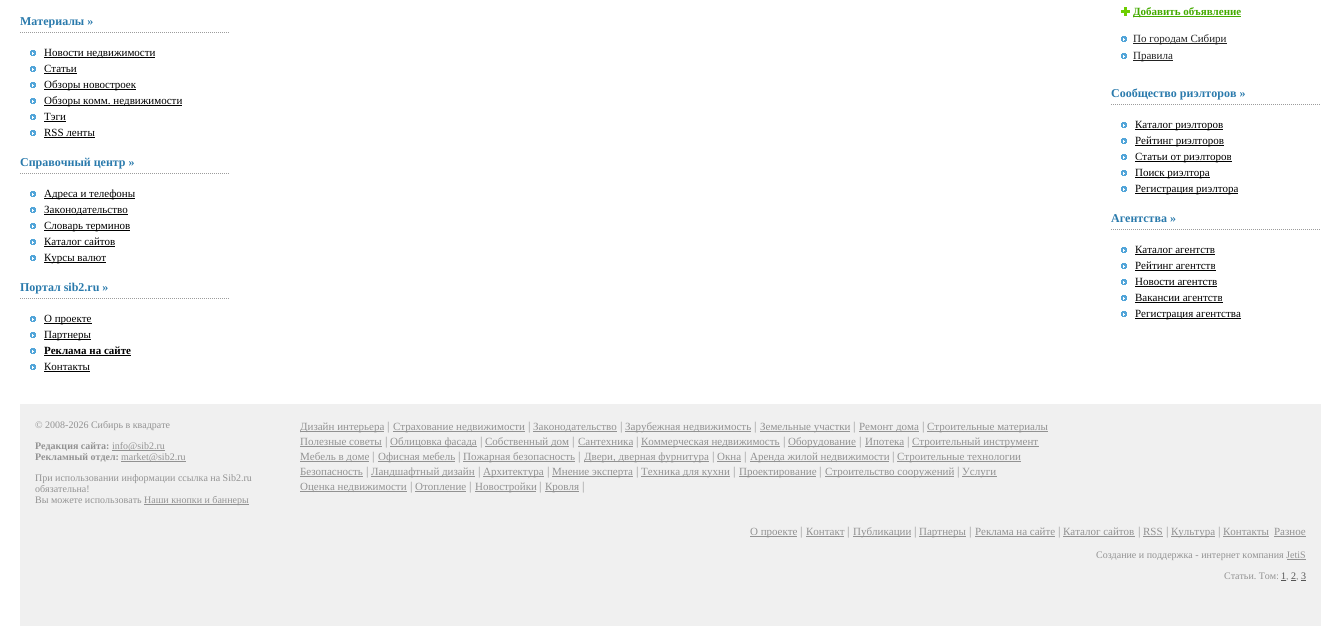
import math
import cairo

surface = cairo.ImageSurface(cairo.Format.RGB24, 1341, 626)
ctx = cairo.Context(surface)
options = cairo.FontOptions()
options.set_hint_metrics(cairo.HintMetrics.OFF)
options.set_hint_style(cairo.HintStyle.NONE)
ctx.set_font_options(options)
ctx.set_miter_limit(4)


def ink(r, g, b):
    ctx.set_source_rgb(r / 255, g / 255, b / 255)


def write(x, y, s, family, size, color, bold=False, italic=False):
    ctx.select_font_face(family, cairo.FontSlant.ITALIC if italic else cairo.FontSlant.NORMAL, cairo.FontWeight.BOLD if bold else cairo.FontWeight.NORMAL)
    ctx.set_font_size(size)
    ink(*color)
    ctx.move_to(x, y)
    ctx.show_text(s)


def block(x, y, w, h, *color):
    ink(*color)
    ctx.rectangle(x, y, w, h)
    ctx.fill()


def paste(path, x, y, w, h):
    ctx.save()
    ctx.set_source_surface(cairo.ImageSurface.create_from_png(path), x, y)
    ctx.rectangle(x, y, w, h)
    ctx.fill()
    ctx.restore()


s1 = dict(family="Liberation Serif", size=12, color=(42, 122, 172), bold=True)
s2 = dict(family="Liberation Serif", size=11, color=(0, 0, 0))
s3 = dict(family="Liberation Serif", size=11, color=(0, 0, 0), bold=True)
s4 = dict(family="Liberation Serif", size=11, color=(68, 170, 0), bold=True)
s5 = dict(family="Liberation Serif", size=11, color=(34, 34, 34))
s6 = dict(family="Liberation Serif", size=10, color=(146, 146, 146))
s7 = dict(family="Liberation Serif", size=10, color=(146, 146, 146), bold=True)
s8 = dict(family="Liberation Serif", size=11, color=(146, 146, 146))
s9 = dict(family="Liberation Serif", size=12, color=(146, 146, 146))
s10 = dict(family="Liberation Serif", size=10, color=(85, 85, 85))

ink(255, 255, 255)
ctx.paint()
paste("pic1.png", 20, 32, 209, 1)
write(20, 25, "Материалы »", **s1)
paste("pic2.png", 30, 50, 6, 6)
block(44, 57, 111, 1, 0, 0, 0)
write(44, 56, "Новости недвижимости", **s2)
paste("pic2.png", 30, 66, 6, 6)
write(44, 72, "Статьи", **s2)
block(44, 73, 33, 1, 0, 0, 0)
paste("pic2.png", 30, 82, 6, 6)
block(44, 89, 92, 1, 0, 0, 0)
write(44, 88, "Обзоры новостроек", **s2)
paste("pic2.png", 30, 98, 6, 6)
block(44, 105, 138, 1, 0, 0, 0)
write(44, 104, "Обзоры комм. недвижимости", **s2)
paste("pic2.png", 30, 114, 6, 6)
write(44, 120, "Тэги", **s2)
block(44, 121, 22, 1, 0, 0, 0)
paste("pic2.png", 30, 130, 6, 6)
write(44, 136, "RSS ленты", **s2)
block(44, 137, 51, 1, 0, 0, 0)
paste("pic1.png", 20, 173, 209, 1)
write(20, 166, "Справочный центр »", **s1)
paste("pic2.png", 30, 191, 6, 6)
block(44, 198, 91, 1, 0, 0, 0)
write(44, 197, "Адреса и телефоны", **s2)
paste("pic2.png", 30, 207, 6, 6)
block(44, 214, 84, 1, 0, 0, 0)
write(44, 213, "Законодательство", **s2)
paste("pic2.png", 30, 223, 6, 6)
block(44, 230, 86, 1, 0, 0, 0)
write(44, 229, "Словарь терминов", **s2)
paste("pic2.png", 30, 239, 6, 6)
write(44, 245, "Каталог сайтов", **s2)
block(44, 246, 71, 1, 0, 0, 0)
paste("pic2.png", 30, 255, 6, 6)
block(44, 262, 62, 1, 0, 0, 0)
write(44, 261, "Курсы валют", **s2)
paste("pic1.png", 20, 298, 209, 1)
write(20, 291, "Портал sib2.ru »", **s1)
paste("pic2.png", 30, 316, 6, 6)
block(44, 323, 48, 1, 0, 0, 0)
write(44, 322, "О проекте", **s2)
paste("pic2.png", 30, 332, 6, 6)
block(44, 339, 47, 1, 0, 0, 0)
write(44, 338, "Партнеры", **s2)
paste("pic2.png", 30, 348, 6, 6)
write(44, 354, "Реклама на сайте", **s3)
block(44, 355, 87, 1, 0, 0, 0)
paste("pic2.png", 30, 364, 6, 6)
write(44, 370, "Контакты", **s2)
block(44, 371, 46, 1, 0, 0, 0)
paste("pic3.png", 1121, 7, 9, 9)
block(1133, 16, 108, 1, 68, 170, 0)
write(1133, 15, "Добавить объявление", **s4)
paste("pic2.png", 1121, 36, 6, 6)
block(1133, 43, 94, 1, 34, 34, 34)
write(1133, 42, "По городам Сибири", **s5)
paste("pic2.png", 1121, 53, 6, 6)
block(1133, 60, 40, 1, 34, 34, 34)
write(1133, 59, "Правила", **s5)
paste("pic1.png", 1111, 104, 209, 1)
write(1111, 97, "Сообщество риэлторов »", **s1)
paste("pic2.png", 1121, 122, 6, 6)
block(1135, 129, 88, 1, 0, 0, 0)
write(1135, 128, "Каталог риэлторов", **s2)
paste("pic2.png", 1121, 138, 6, 6)
block(1135, 145, 89, 1, 0, 0, 0)
write(1135, 144, "Рейтинг риэлторов", **s2)
paste("pic2.png", 1121, 154, 6, 6)
block(1135, 161, 97, 1, 0, 0, 0)
write(1135, 160, "Статьи от риэлторов", **s2)
paste("pic2.png", 1121, 170, 6, 6)
block(1135, 177, 75, 1, 0, 0, 0)
write(1135, 176, "Поиск риэлтора", **s2)
paste("pic2.png", 1121, 186, 6, 6)
block(1135, 193, 103, 1, 0, 0, 0)
write(1135, 192, "Регистрация риэлтора", **s2)
paste("pic1.png", 1111, 229, 209, 1)
write(1111, 222, "Агентства »", **s1)
paste("pic2.png", 1121, 247, 6, 6)
write(1135, 253, "Каталог агентств", **s2)
block(1135, 254, 80, 1, 0, 0, 0)
paste("pic2.png", 1121, 263, 6, 6)
write(1135, 269, "Рейтинг агентств", **s2)
block(1135, 270, 81, 1, 0, 0, 0)
paste("pic2.png", 1121, 279, 6, 6)
write(1135, 285, "Новости агентств", **s2)
block(1135, 286, 82, 1, 0, 0, 0)
paste("pic2.png", 1121, 295, 6, 6)
write(1135, 301, "Вакансии агентств", **s2)
block(1135, 302, 88, 1, 0, 0, 0)
paste("pic2.png", 1121, 311, 6, 6)
block(1135, 318, 106, 1, 0, 0, 0)
write(1135, 317, "Регистрация агентства", **s2)
block(20, 404, 1301, 222, 240, 240, 240)
write(35, 428, "© 2008-2026 Сибирь в квадрате", **s6)
write(35, 449, "Редакция сайта:", **s7)
block(112, 450, 53, 1, 146, 146, 146)
write(112, 449, "info@sib2.ru", **s6)
write(35, 460, "Рекламный отдел:", **s7)
block(121, 461, 65, 1, 146, 146, 146)
write(121, 460, "market@sib2.ru", **s6)
write(35, 481, "При использовании информации ссылка на Sib2.ru", **s6)
write(35, 492, "обязательна!", **s6)
write(35, 503, "Вы можете использовать", **s6)
block(144, 504, 105, 1, 146, 146, 146)
write(144, 503, "Наши кнопки и баннеры", **s6)
block(300, 431, 84, 1, 146, 146, 146)
write(300, 430, "Дизайн интерьера", **s8)
write(387, 430, "|", **s9)
block(393, 431, 132, 1, 146, 146, 146)
write(393, 430, "Страхование недвижимости", **s8)
write(528, 430, "|", **s9)
block(533, 431, 84, 1, 146, 146, 146)
write(533, 430, "Законодательство", **s8)
write(620, 430, "|", **s9)
block(625, 431, 126, 1, 146, 146, 146)
write(625, 430, "Зарубежная недвижимость", **s8)
write(754, 430, "|", **s9)
block(760, 431, 90, 1, 146, 146, 146)
write(760, 430, "Земельные участки", **s8)
write(853, 430, "|", **s9)
block(859, 431, 60, 1, 146, 146, 146)
write(859, 430, "Ремонт дома", **s8)
write(922, 430, "|", **s9)
block(927, 431, 121, 1, 146, 146, 146)
write(927, 430, "Строительные материалы", **s8)
write(300, 445, "Полезные советы", **s8)
block(300, 446, 82, 1, 146, 146, 146)
write(385, 445, "|", **s9)
block(390, 446, 87, 1, 146, 146, 146)
write(390, 445, "Облицовка фасада", **s8)
write(480, 445, "|", **s9)
block(485, 446, 84, 1, 146, 146, 146)
write(485, 445, "Собственный дом", **s8)
write(572, 445, "|", **s9)
write(578, 445, "Сантехника", **s8)
block(578, 446, 55, 1, 146, 146, 146)
write(636, 445, "|", **s9)
block(641, 446, 139, 1, 146, 146, 146)
write(641, 445, "Коммерческая недвижимость", **s8)
write(783, 445, "|", **s9)
block(788, 446, 68, 1, 146, 146, 146)
write(788, 445, "Оборудование", **s8)
write(859, 445, "|", **s9)
write(865, 445, "Ипотека", **s8)
block(865, 446, 39, 1, 146, 146, 146)
write(907, 445, "|", **s9)
block(912, 446, 127, 1, 146, 146, 146)
write(912, 445, "Строительный инструмент", **s8)
block(300, 461, 69, 1, 146, 146, 146)
write(300, 460, "Мебель в доме", **s8)
write(372, 460, "|", **s9)
block(378, 461, 77, 1, 146, 146, 146)
write(378, 460, "Офисная мебель", **s8)
write(458, 460, "|", **s9)
block(463, 461, 112, 1, 146, 146, 146)
write(463, 460, "Пожарная безопасность", **s8)
write(578, 460, "|", **s9)
block(584, 461, 125, 1, 146, 146, 146)
write(584, 460, "Двери, дверная фурнитура", **s8)
write(712, 460, "|", **s9)
write(717, 460, "Окна", **s8)
block(717, 461, 24, 1, 146, 146, 146)
write(744, 460, "|", **s9)
block(750, 461, 139, 1, 146, 146, 146)
write(750, 460, "Аренда жилой недвижимости", **s8)
write(892, 460, "|", **s9)
block(897, 461, 124, 1, 146, 146, 146)
write(897, 460, "Строительные технологии", **s8)
write(300, 475, "Безопасность", **s8)
block(300, 476, 63, 1, 146, 146, 146)
write(366, 475, "|", **s9)
block(371, 476, 104, 1, 146, 146, 146)
write(371, 475, "Ландшафтный дизайн", **s8)
write(478, 475, "|", **s9)
block(483, 476, 61, 1, 146, 146, 146)
write(483, 475, "Архитектура", **s8)
write(547, 475, "|", **s9)
block(552, 476, 81, 1, 146, 146, 146)
write(552, 475, "Мнение эксперта", **s8)
write(636, 475, "|", **s9)
block(641, 476, 89, 1, 146, 146, 146)
write(641, 475, "Техника для кухни", **s8)
write(733, 475, "|", **s9)
block(739, 476, 77, 1, 146, 146, 146)
write(739, 475, "Проектирование", **s8)
write(819, 475, "|", **s9)
block(825, 476, 129, 1, 146, 146, 146)
write(825, 475, "Строительство сооружений", **s8)
write(957, 475, "|", **s9)
block(962, 476, 35, 1, 146, 146, 146)
write(962, 475, "Услуги", **s8)
block(300, 491, 107, 1, 146, 146, 146)
write(300, 490, "Оценка недвижимости", **s8)
write(410, 490, "|", **s9)
write(415, 490, "Отопление", **s8)
block(415, 491, 51, 1, 146, 146, 146)
write(469, 490, "|", **s9)
block(475, 491, 61, 1, 146, 146, 146)
write(475, 490, "Новостройки", **s8)
write(539, 490, "|", **s9)
block(545, 491, 34, 1, 146, 146, 146)
write(545, 490, "Кровля", **s8)
write(582, 490, "|", **s9)
block(750, 536, 47, 1, 146, 146, 146)
write(750, 535, "О проекте", **s8)
write(800, 535, "|", **s9)
write(806, 535, "Контакт", **s8)
block(806, 536, 38, 1, 146, 146, 146)
write(847, 535, "|", **s9)
block(853, 536, 58, 1, 146, 146, 146)
write(853, 535, "Публикации", **s8)
write(914, 535, "|", **s9)
block(919, 536, 47, 1, 146, 146, 146)
write(919, 535, "Партнеры", **s8)
write(969, 535, "|", **s9)
write(975, 535, "Реклама на сайте", **s8)
block(975, 536, 80, 1, 146, 146, 146)
write(1058, 535, "|", **s9)
write(1063, 535, "Каталог сайтов", **s8)
block(1063, 536, 72, 1, 146, 146, 146)
write(1138, 535, "|", **s9)
write(1143, 535, "RSS", **s8)
block(1143, 536, 20, 1, 146, 146, 146)
write(1166, 535, "|", **s9)
block(1171, 536, 44, 1, 146, 146, 146)
write(1171, 535, "Культура", **s8)
write(1218, 535, "|", **s9)
write(1223, 535, "Контакты", **s8)
block(1223, 536, 46, 1, 146, 146, 146)
write(1274, 535, "Разное", **s8)
block(1274, 536, 32, 1, 146, 146, 146)
write(1096, 558, "Создание и поддержка - интернет компания JetiS", **s6)
block(1287, 559, 19, 1, 146, 146, 146)
write(1224, 579, "Статьи. Том:", **s6)
write(1281, 579, "1", **s10)
block(1281, 580, 5, 1, 85, 85, 85)
write(1286, 579, ",", **s6)
write(1291, 579, "2", **s10)
block(1291, 580, 5, 1, 85, 85, 85)
write(1296, 579, ",", **s6)
write(1301, 579, "3", **s10)
block(1301, 580, 5, 1, 85, 85, 85)
surface.write_to_png("screenshot.png")
